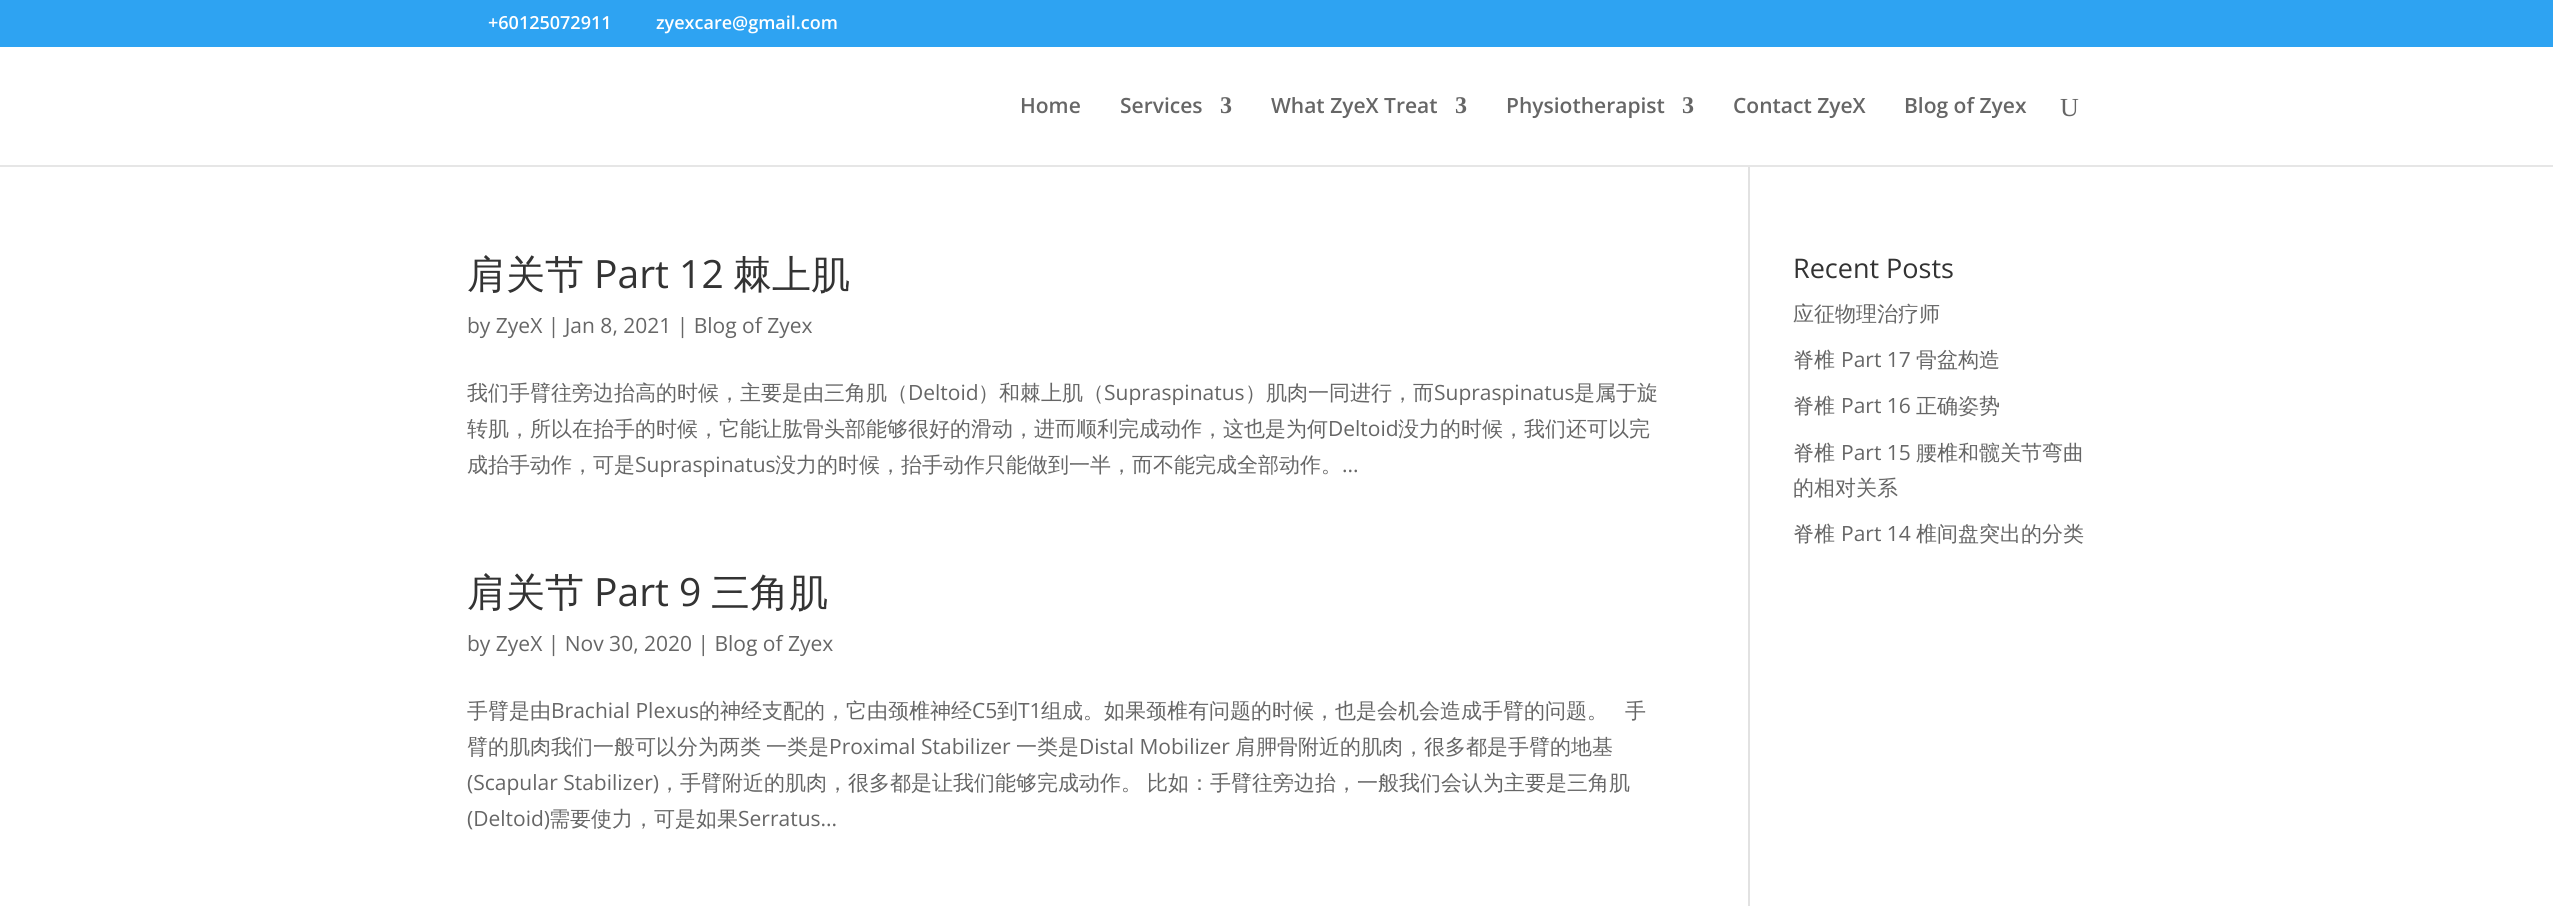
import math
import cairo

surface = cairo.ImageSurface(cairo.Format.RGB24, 2553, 906)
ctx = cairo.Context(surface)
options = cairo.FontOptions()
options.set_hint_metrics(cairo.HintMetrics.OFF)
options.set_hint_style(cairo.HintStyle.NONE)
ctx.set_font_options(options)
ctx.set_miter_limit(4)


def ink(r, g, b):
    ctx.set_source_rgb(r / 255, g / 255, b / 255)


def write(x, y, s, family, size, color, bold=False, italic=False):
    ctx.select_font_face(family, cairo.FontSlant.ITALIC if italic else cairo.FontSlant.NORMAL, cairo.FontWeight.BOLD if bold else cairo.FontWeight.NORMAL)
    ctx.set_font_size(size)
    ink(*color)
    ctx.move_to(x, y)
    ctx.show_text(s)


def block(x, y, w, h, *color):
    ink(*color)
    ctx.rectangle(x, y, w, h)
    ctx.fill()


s1 = dict(family="Open Sans SemiBold", size=18, color=(255, 255, 255))
s2 = dict(family="Open Sans SemiBold", size=21, color=(102, 102, 102))
s3 = dict(family="Liberation Serif", size=24, color=(102, 102, 102), bold=True)
s4 = dict(family="Liberation Serif", size=26, color=(102, 102, 102))
s5 = dict(family="WenQuanYi Zen Hei Medium", size=39, color=(51, 51, 51))
s6 = dict(family="Open Sans", size=39, color=(51, 51, 51))
s7 = dict(family="Open Sans", size=21, color=(102, 102, 102))
s8 = dict(family="WenQuanYi Zen Hei Medium", size=21, color=(102, 102, 102))
s9 = dict(family="Open Sans", size=27, color=(51, 51, 51))

ink(255, 255, 255)
ctx.paint()
block(0, 0, 2553, 47, 46, 163, 242)
write(488, 29, "+60125072911", **s1)
write(656, 29, "zyexcare@gmail.com", **s1)
block(0, 165, 2553, 2, 230, 230, 230)
write(1020, 113, "Home", **s2)
write(1120, 113, "Services", **s2)
write(1220, 113, "3", **s3)
write(1271, 113, "What ZyeX Treat", **s2)
write(1455, 113, "3", **s3)
write(1506, 113, "Physiotherapist", **s2)
write(1682, 113, "3", **s3)
write(1733, 113, "Contact ZyeX", **s2)
write(1904, 113, "Blog of Zyex", **s2)
write(2060, 116, "U", **s4)
block(1748, 167, 2, 739, 226, 226, 226)
write(467, 288, "肩关节", **s5)
write(594, 288, "Part 12", **s6)
write(733, 288, "棘上肌", **s5)
write(467, 333, "by ZyeX | Jan 8, 2021 | Blog of Zyex", **s7)
write(467, 400, "我们手臂往旁边抬高的时候，主要是由三角肌（", **s8)
write(908, 400, "Deltoid", **s7)
write(978, 400, "）和棘上肌（", **s8)
write(1104, 400, "Supraspinatus", **s7)
write(1245, 400, "）肌肉一同进行，而", **s8)
write(1434, 400, "Supraspinatus", **s7)
write(1574, 400, "是属于旋", **s8)
write(467, 436, "转肌，所以在抬手的时候，它能让肱骨头部能够很好的滑动，进而顺利完成动作，这也是为何", **s8)
write(1328, 436, "Deltoid", **s7)
write(1398, 436, "没力的时候，我们还可以完", **s8)
write(467, 472, "成抬手动作，可是", **s8)
write(635, 472, "Supraspinatus", **s7)
write(775, 472, "没力的时候，抬手动作只能做到一半，而不能完成全部动作。", **s8)
write(1342, 472, "...", **s7)
write(467, 606, "肩关节", **s5)
write(594, 606, "Part 9", **s6)
write(711, 606, "三角肌", **s5)
write(467, 651, "by ZyeX | Nov 30, 2020 | Blog of Zyex", **s7)
write(467, 718, "手臂是由", **s8)
write(551, 718, "Brachial Plexus", **s7)
write(699, 718, "的神经支配的，它由颈椎神经", **s8)
write(972, 718, "C5", **s7)
write(997, 718, "到", **s8)
write(1018, 718, "T1", **s7)
write(1041, 718, "组成。如果颈椎有问题的时候，也是会机会造成手臂的问题。", **s8)
write(1625, 718, "手", **s8)
write(467, 754, "臂的肌肉我们一般可以分为两类", **s8)
write(766, 754, "一类是", **s8)
write(829, 754, "Proximal Stabilizer", **s7)
write(1016, 754, "一类是", **s8)
write(1079, 754, "Distal Mobilizer", **s7)
write(1235, 754, "肩胛骨附近的肌肉，很多都是手臂的地基", **s8)
write(467, 790, "(Scapular Stabilizer)", **s7)
write(659, 790, "，手臂附近的肌肉，很多都是让我们能够完成动作。", **s8)
write(1147, 790, "比如：手臂往旁边抬，一般我们会认为主要是三角肌", **s8)
write(467, 826, "(Deltoid)", **s7)
write(549, 826, "需要使力，可是如果", **s8)
write(738, 826, "Serratus...", **s7)
write(1793, 278, "Recent Posts", **s9)
write(1793, 321, "应征物理治疗师", **s8)
write(1793, 367, "脊椎", **s8)
write(1841, 367, "Part 17", **s7)
write(1916, 367, "骨盆构造", **s8)
write(1793, 413, "脊椎", **s8)
write(1841, 413, "Part 16", **s7)
write(1916, 413, "正确姿势", **s8)
write(1793, 460, "脊椎", **s8)
write(1841, 460, "Part 15", **s7)
write(1916, 460, "腰椎和髋关节弯曲", **s8)
write(1793, 495, "的相对关系", **s8)
write(1793, 541, "脊椎", **s8)
write(1841, 541, "Part 14", **s7)
write(1916, 541, "椎间盘突出的分类", **s8)
surface.write_to_png("screenshot.png")
